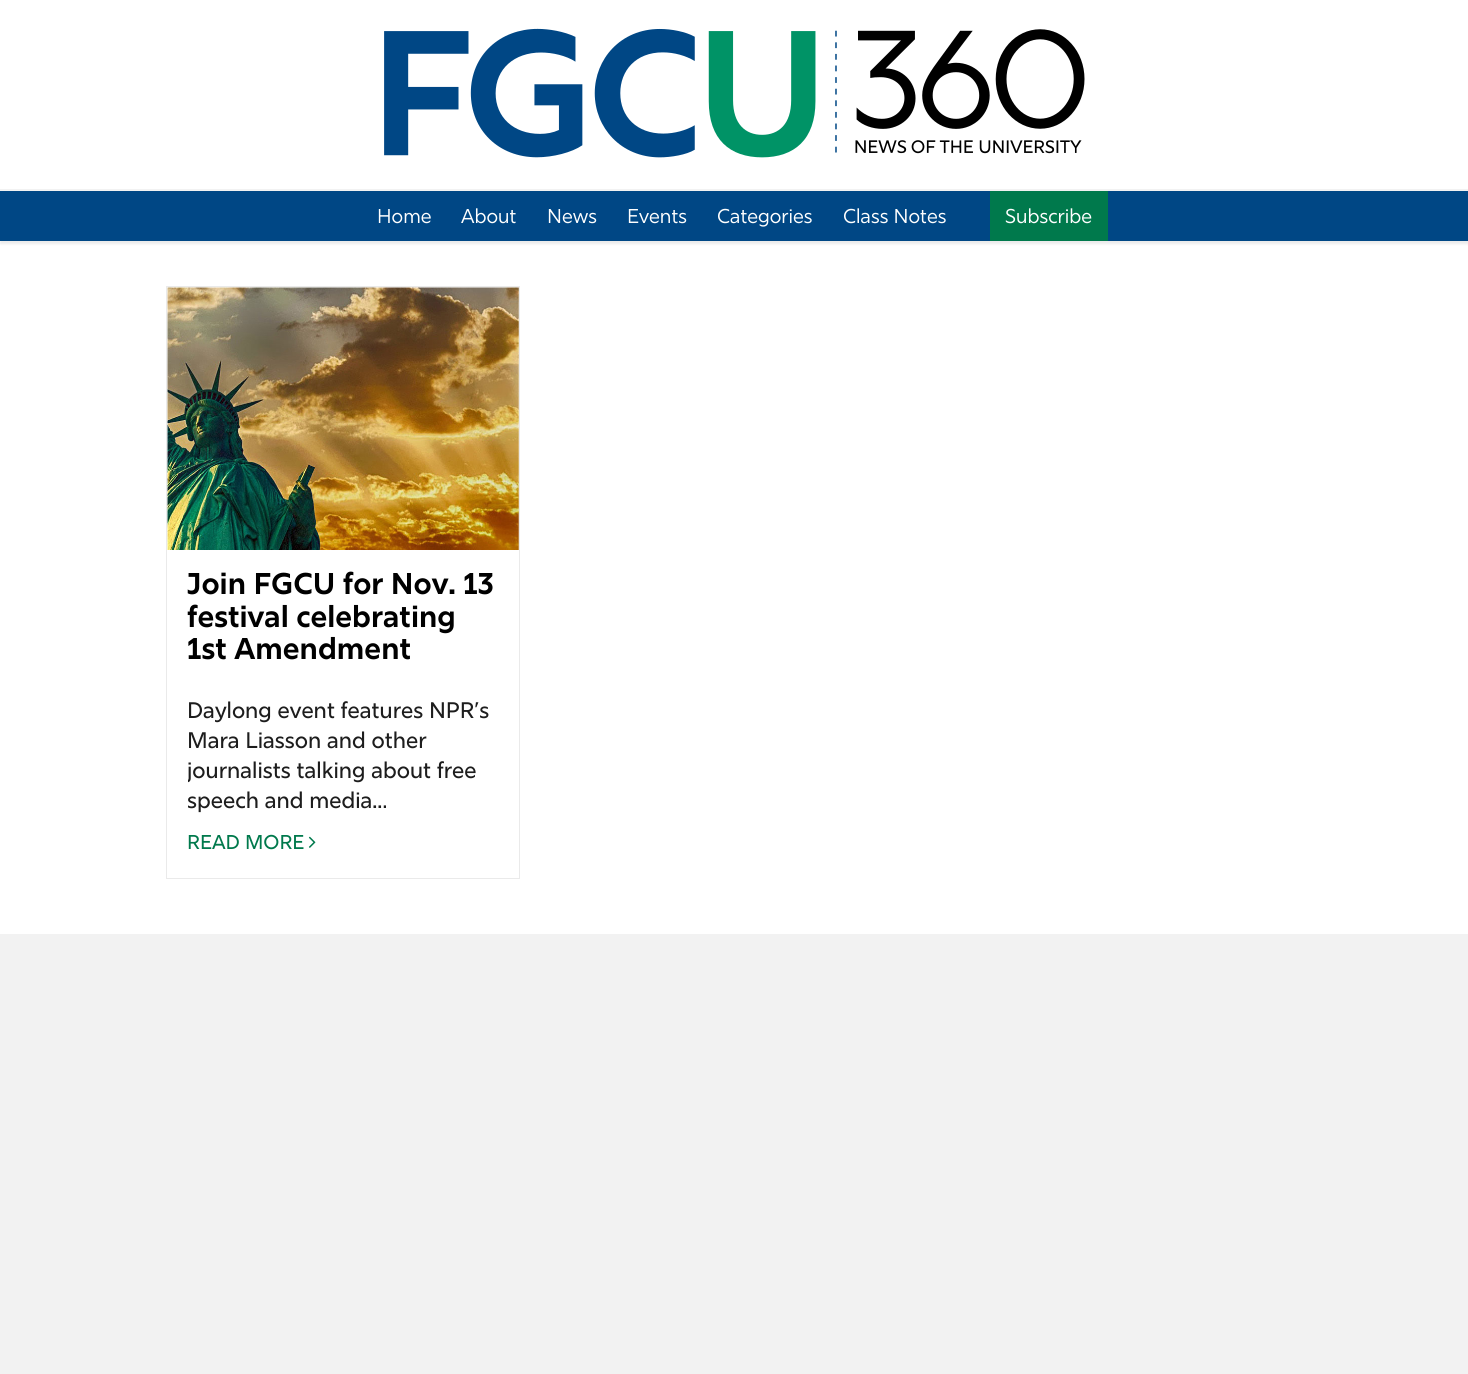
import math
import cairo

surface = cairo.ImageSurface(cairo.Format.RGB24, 1468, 1374)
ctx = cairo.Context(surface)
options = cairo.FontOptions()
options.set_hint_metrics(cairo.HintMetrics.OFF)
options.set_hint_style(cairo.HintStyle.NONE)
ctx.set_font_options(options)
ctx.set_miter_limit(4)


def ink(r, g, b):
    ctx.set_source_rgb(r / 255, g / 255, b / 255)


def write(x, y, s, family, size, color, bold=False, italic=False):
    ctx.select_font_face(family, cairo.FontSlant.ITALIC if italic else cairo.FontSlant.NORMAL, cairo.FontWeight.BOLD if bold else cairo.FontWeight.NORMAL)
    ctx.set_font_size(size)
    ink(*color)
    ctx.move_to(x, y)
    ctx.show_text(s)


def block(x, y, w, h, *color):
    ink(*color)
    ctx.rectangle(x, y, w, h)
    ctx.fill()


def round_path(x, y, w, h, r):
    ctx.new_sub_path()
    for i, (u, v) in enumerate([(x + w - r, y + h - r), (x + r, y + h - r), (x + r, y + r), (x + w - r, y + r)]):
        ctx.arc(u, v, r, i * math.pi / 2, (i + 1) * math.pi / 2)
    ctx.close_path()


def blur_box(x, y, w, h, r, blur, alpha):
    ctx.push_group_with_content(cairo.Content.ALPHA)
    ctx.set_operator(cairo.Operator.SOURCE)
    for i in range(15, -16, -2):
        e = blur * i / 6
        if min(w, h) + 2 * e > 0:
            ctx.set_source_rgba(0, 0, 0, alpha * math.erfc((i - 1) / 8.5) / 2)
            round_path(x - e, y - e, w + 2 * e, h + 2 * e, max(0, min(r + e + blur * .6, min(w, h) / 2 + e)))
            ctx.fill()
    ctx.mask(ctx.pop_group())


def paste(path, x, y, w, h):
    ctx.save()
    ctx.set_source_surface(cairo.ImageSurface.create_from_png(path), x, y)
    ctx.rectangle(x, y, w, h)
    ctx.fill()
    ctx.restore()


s1 = dict(family="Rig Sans", size=20, color=(255, 255, 255))
s2 = dict(family="Rig Sans", size=30, color=(0, 0, 0), bold=True)
s3 = dict(family="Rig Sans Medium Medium", size=22.5, color=(29, 29, 29))
s4 = dict(family="Rig Sans Medium Medium", size=20, color=(0, 121, 76))

ink(242, 242, 242)
ctx.paint()
block(0, 0, 1468, 934, 255, 255, 255)
ctx.save()
ctx.rectangle(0, 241, 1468, 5)
ctx.clip()
ink(236, 236, 236)
blur_box(0, 3, 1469, 241, 0, 1, 1)
ctx.restore()
block(0, 189, 1468, 2, 242, 242, 242)
paste("pic1.png", 384, 28, 701, 130)
block(0, 191, 1468, 50, 0, 71, 133)
write(377, 223, "Home", **s1)
write(461, 223, "About", **s1)
write(547, 223, "News", **s1)
write(627, 223, "Events", **s1)
write(717, 223, "Categories", **s1)
write(843, 223, "Class Notes", **s1)
block(990, 191, 118, 50, 0, 121, 76)
write(1005, 223, "Subscribe", **s1)
ctx.rectangle(166.5, 286.5, 353, 592)
ink(234, 234, 234)
ctx.set_line_width(1)
ctx.stroke()
paste("pic2.png", 167, 287, 352, 263)
write(187, 594, "Join FGCU for Nov. 13", **s2)
write(187, 627, "festival celebrating", **s2)
write(187, 659, "1st Amendment", **s2)
write(187, 718, "Daylong event features NPR’s", **s3)
write(187, 748, "Mara Liasson and other", **s3)
ctx.save()
ctx.rectangle(188, 683, 311, 135)
ctx.clip()
write(187, 778, "journalists talking about free", **s3)
write(187, 808, "speech and media...", **s3)
ctx.restore()
write(187, 849, "READ MORE", **s4)
paste("pic3.png", 308, 836, 8, 12)
surface.write_to_png("screenshot.png")
